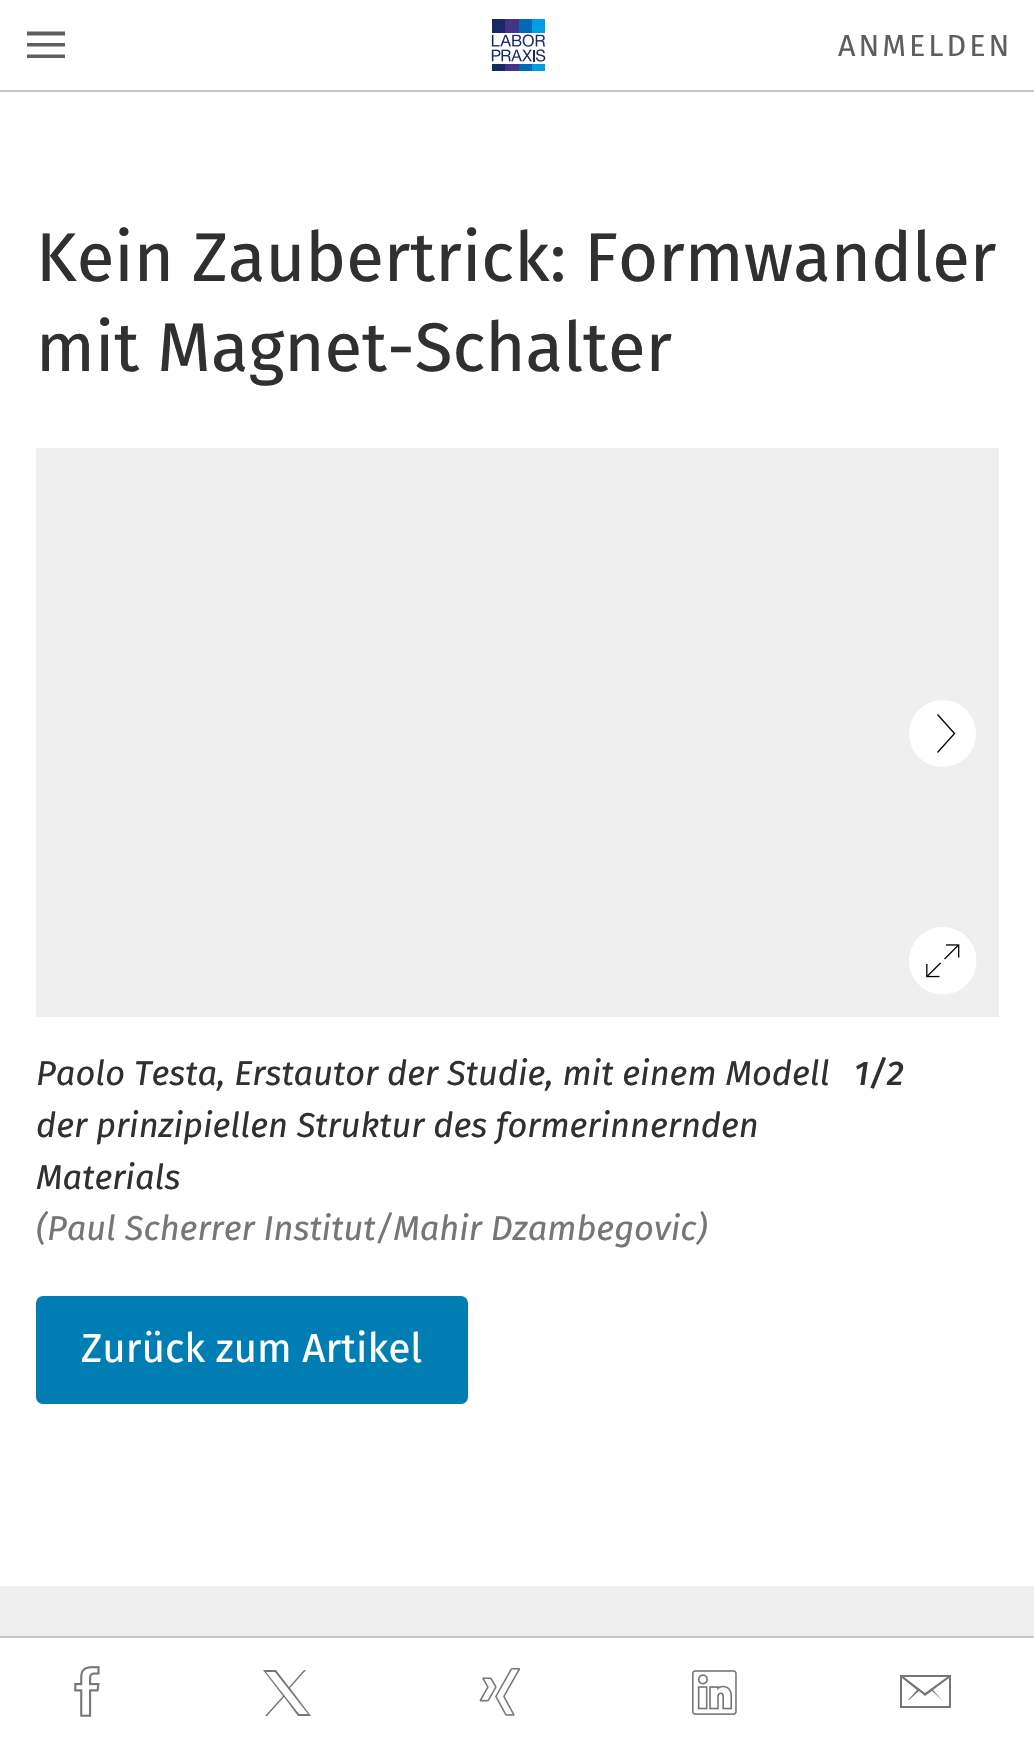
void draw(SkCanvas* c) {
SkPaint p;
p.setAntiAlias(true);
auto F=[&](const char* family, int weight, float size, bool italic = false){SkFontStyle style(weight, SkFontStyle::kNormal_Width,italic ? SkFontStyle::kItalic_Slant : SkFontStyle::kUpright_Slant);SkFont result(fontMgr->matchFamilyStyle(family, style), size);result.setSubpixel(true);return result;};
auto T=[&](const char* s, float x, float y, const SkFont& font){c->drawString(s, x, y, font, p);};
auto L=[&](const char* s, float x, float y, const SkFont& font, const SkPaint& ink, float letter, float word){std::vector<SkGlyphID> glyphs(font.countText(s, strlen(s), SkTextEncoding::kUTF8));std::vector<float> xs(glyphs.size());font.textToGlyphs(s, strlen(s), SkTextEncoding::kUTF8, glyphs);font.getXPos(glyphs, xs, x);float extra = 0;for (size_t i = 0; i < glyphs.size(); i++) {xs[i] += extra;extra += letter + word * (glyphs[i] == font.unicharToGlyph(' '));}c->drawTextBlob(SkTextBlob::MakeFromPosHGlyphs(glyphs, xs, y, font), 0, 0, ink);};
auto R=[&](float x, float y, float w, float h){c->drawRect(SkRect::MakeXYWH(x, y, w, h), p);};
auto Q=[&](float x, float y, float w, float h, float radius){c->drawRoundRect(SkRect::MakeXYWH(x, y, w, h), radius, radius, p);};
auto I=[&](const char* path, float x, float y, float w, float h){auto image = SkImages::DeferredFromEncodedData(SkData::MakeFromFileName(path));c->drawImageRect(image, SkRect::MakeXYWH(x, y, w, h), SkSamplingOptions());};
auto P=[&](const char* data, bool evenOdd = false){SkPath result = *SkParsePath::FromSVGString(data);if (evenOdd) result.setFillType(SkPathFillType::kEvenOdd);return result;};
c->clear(0xffffffff);
p.setColor(0xffc6c6c6);
R(0,90,1034,2);
p.setColor(0xff5e5e5e);
c->drawPath(P("M27 46.5v-3.5h38v3.5zm0-11v-4h38v4zm0 22.5v-3.5h38v3.5z"),p);
I("1.png",491,19,55,52);
auto f1 = F("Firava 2",400,30.5);
L("ANMELDEN",838,56,f1,p,3,0);
auto f2 = F("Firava",400,68.8);
p.setColor(0xff303030);
T("Kein Zaubertrick: Formwandler",36,281,f2);
T("mit Magnet-Schalter",36,371,f2);
p.setColor(0xffefefef);
R(36,448,963,569);
p.setColor(0xffffffff);
c->drawPath(P("M943 700c-19 0-34 15-34 34c0 18 15 33 34 33c18 0 33-15 33-33c0-19-15-34-33-34"),p);
p.setStroke(true);
p.setStrokeWidth(1.3);
p.setColor(0xff000000);
c->drawPath(P("M937.5 752.5l17-19l-17-19"),p);
I("2.png",909,927,68,68);
auto f3 = F("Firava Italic",400,34.4,true);
p.setStroke(false);
p.setColor(0xff303030);
T("Paolo Testa, Erstautor der Studie, mit einem Modell",36,1085,f3);
T("der prinzipiellen Struktur des formerinnernden",36,1137,f3);
T("Materials",36,1189,f3);
p.setColor(0xff767676);
T("(Paul Scherrer Institut/Mahir Dzambegovic)",36,1240,f3);
auto f4 = F("Firava Italic",500,34.4,true);
p.setColor(0xff303030);
T("1/2",854,1085,f4);
p.setColor(0xff007eb4);
Q(36,1296,432,108,7);
auto f5 = F("Firava",400,40.5);
p.setColor(0xffffffff);
T("Zurück zum Artikel",81,1362,f5);
p.setColor(0xffc6c6c6);
R(0,1636,1034,2);
I("3.png",74,1666,26,51);
p.setColor(0xff767676);
c->drawPath(P("M265 1716h2l17-19l14 19h13l-21-28l16-18h-2l-15 17l-13-17h-13l20 26zm1-44h9l33 42h-9z"),p);
I("4.png",479,1668,42,48);
I("5.png",692,1670,45,45);
c->drawPath(P("M900 1675h51v33h-51zm25 18l22-16h-43zm-23 13h47v-28l-16 12l9 10l-10-9l-7 5l-6-5l-10 9h-1l9-10l-15-12z"),p);
p.setColor(0xffefefef);
R(0,1586,1034,50);
}
